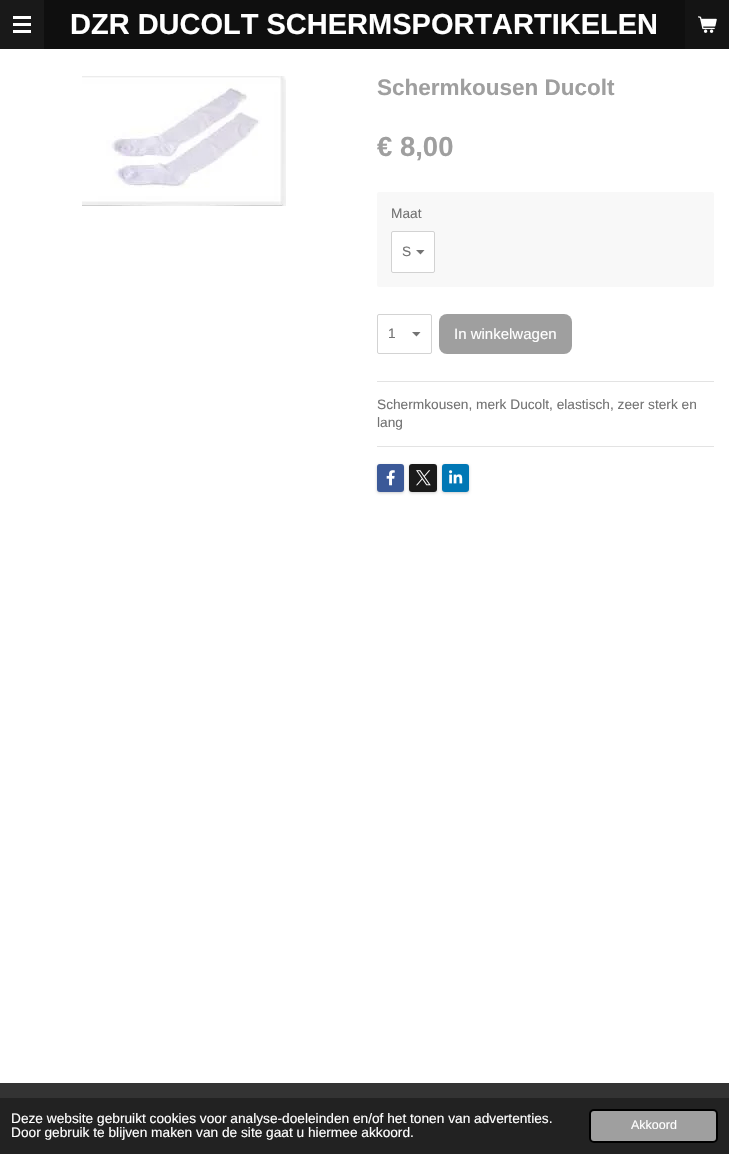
void draw(SkCanvas* c) {
SkPaint p;
p.setAntiAlias(true);
auto F=[&](const char* family, int weight, float size, bool italic = false){SkFontStyle style(weight, SkFontStyle::kNormal_Width,italic ? SkFontStyle::kItalic_Slant : SkFontStyle::kUpright_Slant);SkFont result(fontMgr->matchFamilyStyle(family, style), size);result.setSubpixel(true);return result;};
auto T=[&](const char* s, float x, float y, const SkFont& font){c->drawString(s, x, y, font, p);};
auto R=[&](float x, float y, float w, float h){c->drawRect(SkRect::MakeXYWH(x, y, w, h), p);};
auto Q=[&](float x, float y, float w, float h, float radius){c->drawRoundRect(SkRect::MakeXYWH(x, y, w, h), radius, radius, p);};
auto I=[&](const char* path, float x, float y, float w, float h){auto image = SkImages::DeferredFromEncodedData(SkData::MakeFromFileName(path));c->drawImageRect(image, SkRect::MakeXYWH(x, y, w, h), SkSamplingOptions());};
auto P=[&](const char* data, bool evenOdd = false){SkPath result = *SkParsePath::FromSVGString(data);if (evenOdd) result.setFillType(SkPathFillType::kEvenOdd);return result;};
c->clear(0xff0f0f0f);
p.setColor(0xff191919);
R(0,0,44,49);
p.setColor(0xffffffff);
R(13,23,18,3);
R(13,16,18,3);
R(13,30,18,3);
auto f1 = F("Liberation Sans",700,29);
T("DZR DUCOLT SCHERMSPORTARTIKELEN",70,34,f1);
p.setColor(0xff141414);
R(685,0,44,49);
I("1.png",698,16,19,17);
p.setColor(0xffffffff);
R(0,49,729,1034);
I("2.png",82,76,204,130);
auto f2 = F("Liberation Sans",700,22.5);
p.setColor(0xff9f9f9f);
T("Schermkousen Ducolt",377,95,f2);
auto f3 = F("Liberation Sans",700,27.5);
T("€ 8,00",377,156,f3);
p.setColor(0xfff8f8f8);
Q(377,192,337,95,2.5);
auto f4 = F("Liberation Sans",400,13.7);
p.setColor(0xff737373);
T("Maat",391,218,f4);
p.setColor(0xffffffff);
Q(391,231,44,42,2);
p.setColor(0xff737373);
c->drawPath(P("M420.5 254.5l-4.5-4.5h8.5z"),p);
p.setStroke(true);
p.setStrokeWidth(1);
p.setColor(0xffd2d2d2);
c->drawRoundRect(SkRect::MakeXYWH(391.5,231.5,43,41),1.5,1.5,p);
p.setStroke(false);
p.setColor(0xff737373);
T("S",402,256,f4);
c->drawPath(P("M416.5 336.5l-4.5-4.5h8.5z"),p);
p.setStroke(true);
p.setColor(0xffd3d3d3);
c->drawRoundRect(SkRect::MakeXYWH(377.5,314.5,54,39),1.5,1.5,p);
p.setStroke(false);
p.setColor(0xff737373);
T("1",388,338,f4);
p.setColor(0xff9f9f9f);
Q(439,314,133,40,8);
auto f5 = F("Liberation Sans",400,15);
p.setColor(0xffffffff);
T("In winkelwagen",454,339,f5);
p.setColor(0xffe3e3e3);
R(377,381,337,1);
p.setColor(0xff737373);
T("Schermkousen, merk Ducolt, elastisch, zeer sterk en",377,409,f4);
T("lang",377,427,f4);
p.setColor(0xffe3e3e3);
R(377,446,337,1);
p.setColor(0x33000000);
p.setMaskFilter(SkMaskFilter::MakeBlur(kNormal_SkBlurStyle, 1.5));
c->drawRoundRect(SkRect::MakeXYWH(377,465,27,28),3,3,p);
p.setMaskFilter(nullptr);
p.setColor(0xff3b5998);
Q(377,464,27,28,3);
I("3.png",386,470,9,16);
p.setColor(0x33000000);
p.setMaskFilter(SkMaskFilter::MakeBlur(kNormal_SkBlurStyle, 1.5));
c->drawRoundRect(SkRect::MakeXYWH(409,465,28,28),3,3,p);
p.setMaskFilter(nullptr);
p.setColor(0xff1a1a1a);
Q(409,464,28,28,3);
I("4.png",416,470,15,16);
p.setColor(0x33000000);
p.setMaskFilter(SkMaskFilter::MakeBlur(kNormal_SkBlurStyle, 1.5));
c->drawRoundRect(SkRect::MakeXYWH(442,465,27,28),3,3,p);
p.setMaskFilter(nullptr);
p.setColor(0xff0077b5);
Q(442,464,27,28,3);
I("5.png",449,470,14,14);
p.setColor(0xff333333);
R(0,1083,729,15);
p.setColor(0xff222222);
R(0,1098,729,56);
p.setColor(0xffffffff);
T("Deze website gebruikt cookies voor analyse-doeleinden en/of het tonen van advertenties.",11,1123,f4);
T("Door gebruik te blijven maken van de site gaat u hiermee akkoord.",11,1137,f4);
p.setColor(0xff9f9f9f);
c->drawRoundRect(SkRect::MakeXYWH(590,1110,127,32),4,4,p);
p.setStroke(true);
p.setStrokeWidth(2);
p.setColor(0xff000000);
c->drawRoundRect(SkRect::MakeXYWH(590,1110,127,32),4,4,p);
auto f6 = F("Liberation Sans",400,12.5);
p.setStroke(false);
p.setColor(0xffffffff);
T("Akkoord",631,1129,f6);
}
